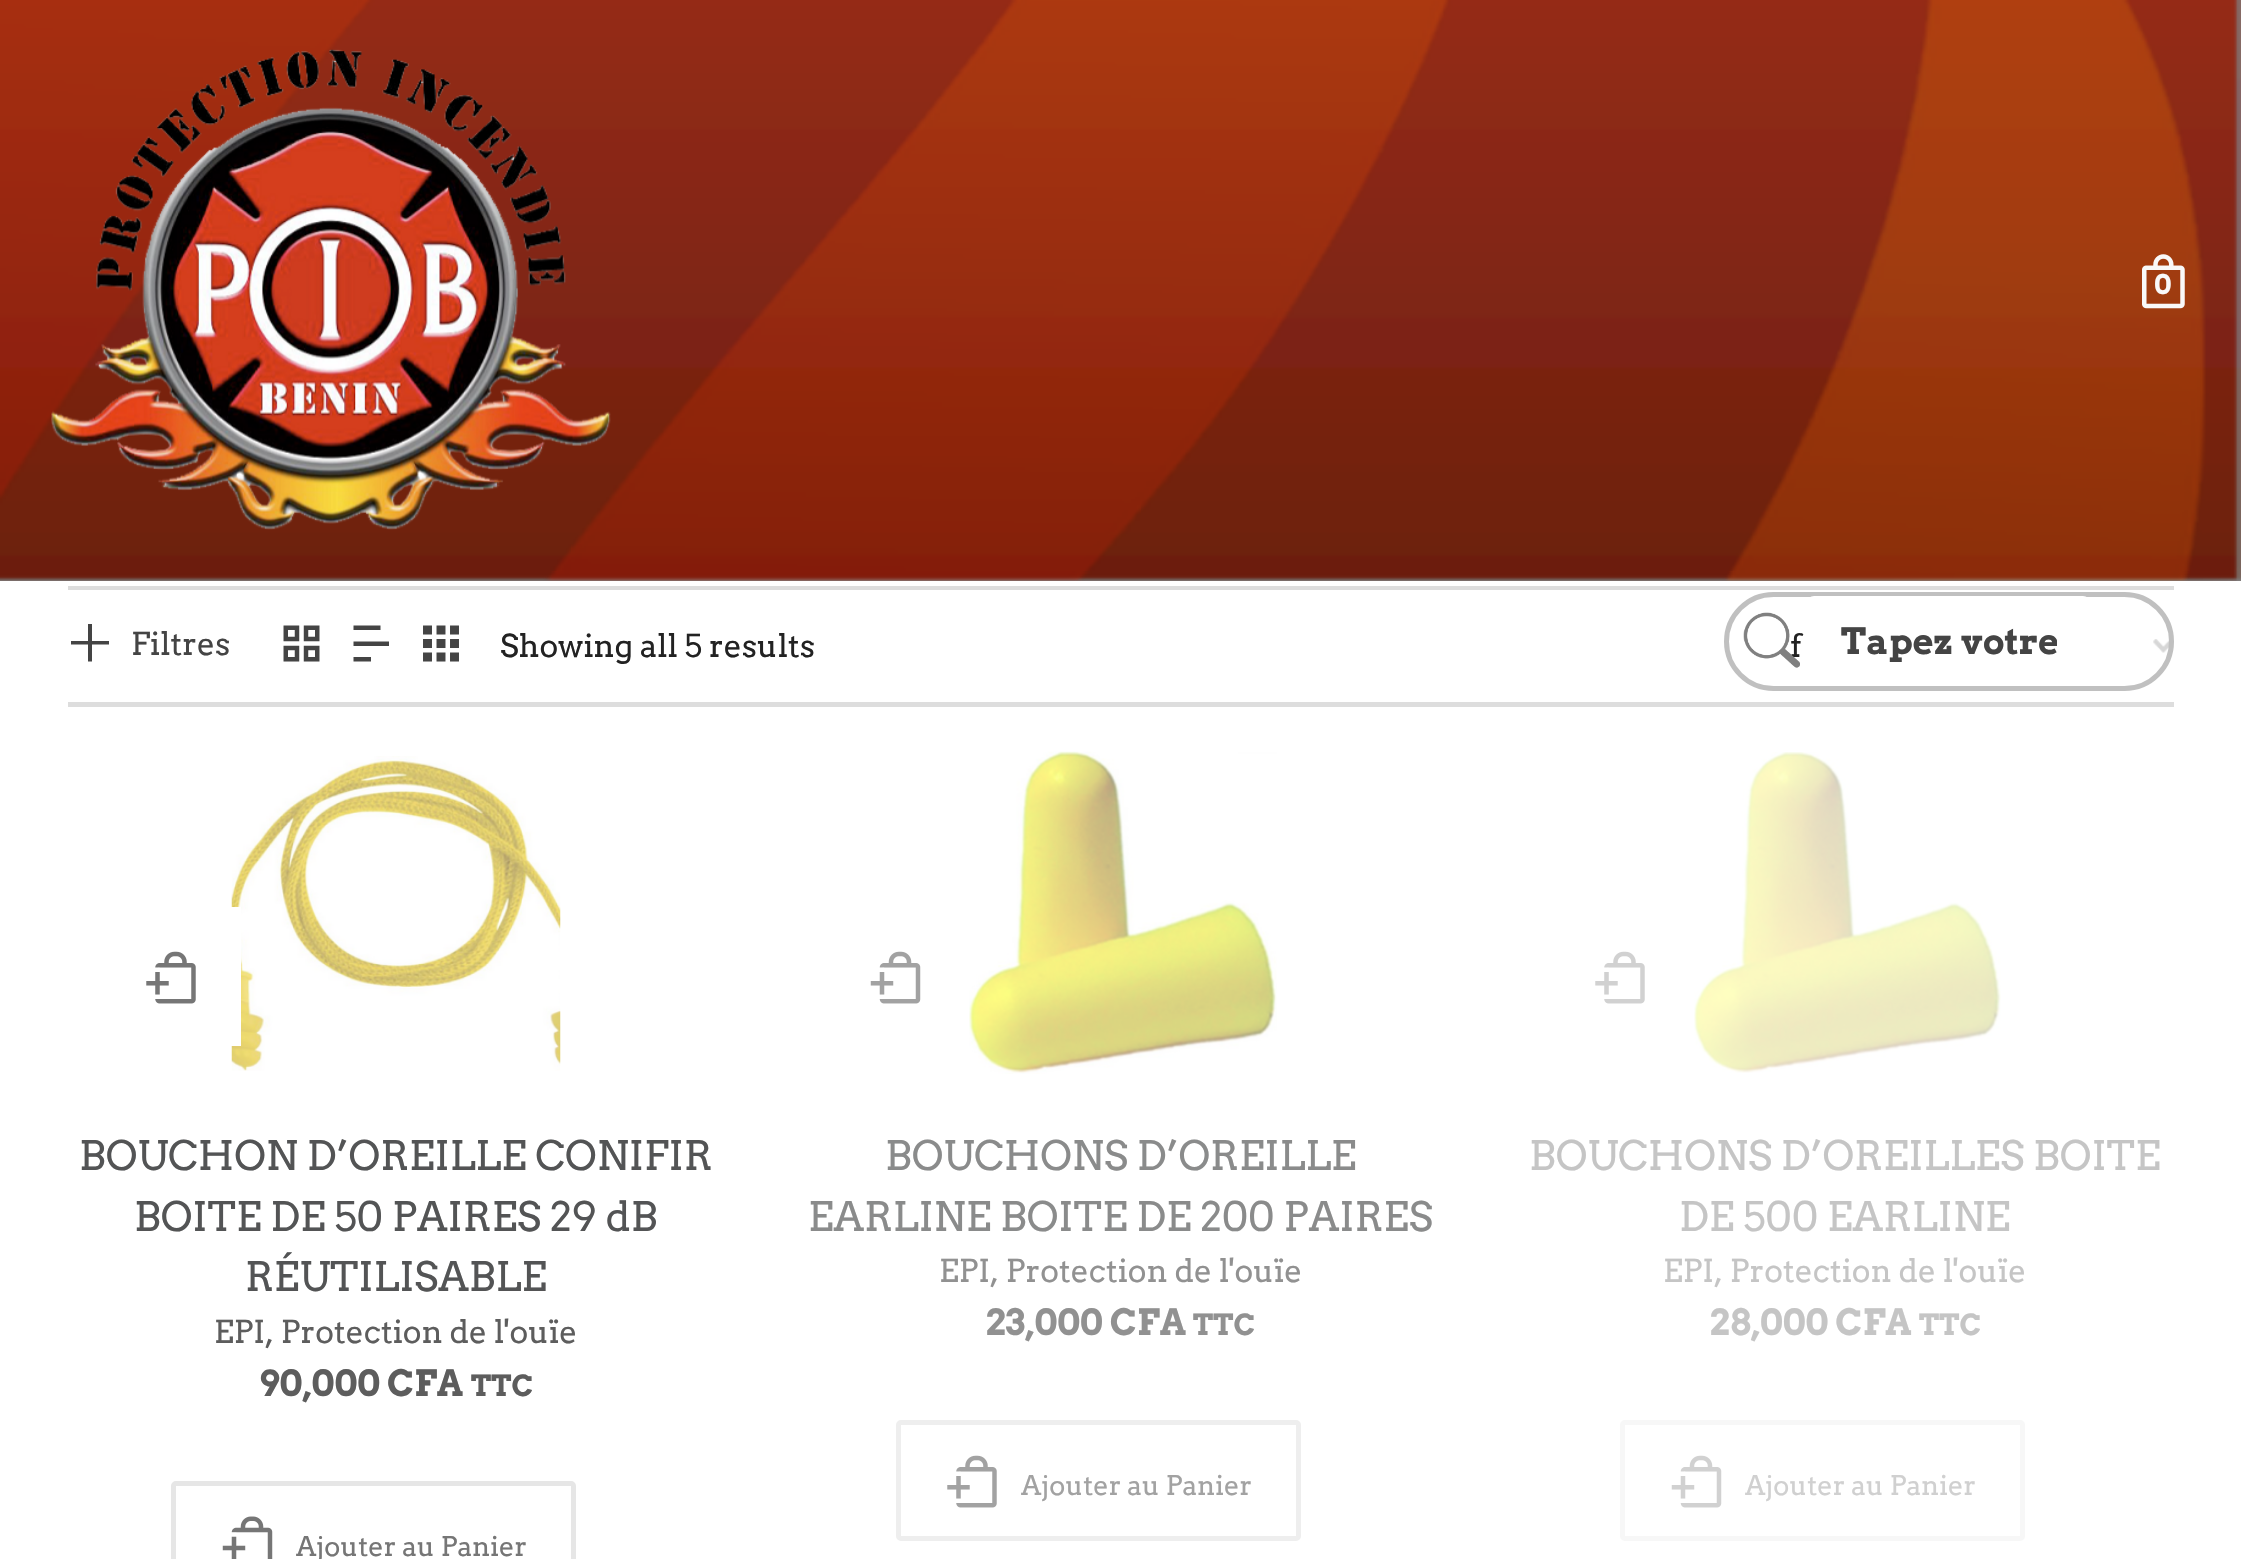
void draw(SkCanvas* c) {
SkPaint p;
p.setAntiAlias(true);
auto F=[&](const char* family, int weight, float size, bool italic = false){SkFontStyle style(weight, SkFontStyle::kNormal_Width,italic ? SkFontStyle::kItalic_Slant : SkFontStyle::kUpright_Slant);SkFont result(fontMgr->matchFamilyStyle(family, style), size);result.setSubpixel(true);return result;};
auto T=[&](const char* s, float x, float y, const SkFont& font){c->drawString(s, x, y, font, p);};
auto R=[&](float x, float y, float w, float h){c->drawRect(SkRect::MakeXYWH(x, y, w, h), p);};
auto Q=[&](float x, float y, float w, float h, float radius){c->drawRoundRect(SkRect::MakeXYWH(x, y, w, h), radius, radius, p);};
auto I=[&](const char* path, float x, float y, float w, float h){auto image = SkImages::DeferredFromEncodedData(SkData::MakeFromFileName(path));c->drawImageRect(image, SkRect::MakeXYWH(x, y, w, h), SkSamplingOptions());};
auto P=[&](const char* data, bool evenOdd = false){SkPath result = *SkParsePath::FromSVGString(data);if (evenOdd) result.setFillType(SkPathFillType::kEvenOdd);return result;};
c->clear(0xffffffff);
p.setColor(0xff848484);
R(0,0,2241,581);
I("1.png",0,0,2241,581);
I("2.png",51,49,560,481);
I("3.png",2142,254,43,55);
auto f1 = F("Arvo",700,27);
p.setColor(0xfff9f9f9);
T("0",2154,294,f1);
I("7.png",2153,639,21,14);
p.setStroke(true);
p.setStrokeWidth(5);
p.setColor(0xffc0c0c0);
c->drawRoundRect(SkRect::MakeXYWH(1726.5,594.5,445,94),47,47,p);
auto f2 = F("Arvo",400,31.5);
p.setStroke(false);
p.setColor(0xff222222);
T("f",1790,657,f2);
I("4.png",1743,612,57,56);
p.setColor(0xffffffff);
Q(1807,596,283,90,7);
c->save();
c->clipRect(SkRect::MakeXYWH(1841,619,216,43));
auto f3 = F("Arvo",700,36);
p.setColor(0xff444444);
T("Tapez votre",1841,654,f3);
c->restore();
p.setColor(0xffdddddd);
R(68,586,2106,4);
R(68,702,2106,5);
p.setColor(0xff444444);
c->drawPath(P("M92 624h-4v17h-17v3.5h17v17h4v-17h17v-3.5h-17z"),p);
T("Filtres",131,655,f2);
I("5.png",283,625,37,37);
c->drawPath(P("M353.5 641.5h35.5v4.5h-35.5zm0-16h27v4.5h-27zm0 31.5h17.5v4.5h-17.5z"),p);
I("6.png",423,625,36,37);
p.setColor(0xff222222);
T("Showing all 5 results",500,657,f2);
I("9.png",231,756,330,315);
p.setColor(0xffffffff);
R(231,907,10,139);
I("8.png",146,951,50,53);
auto f4 = F("Arvo",400,40.5);
p.setColor(0xff535455);
T("BOUCHON D’OREILLE CONIFIR",79,1170,f4);
T("BOITE DE 50 PAIRES 29 dB",134,1231,f4);
T("RÉUTILISABLE",245,1291,f4);
p.setColor(0xff5d5d5d);
T("EPI, Protection de l'ouïe",214,1343,f2);
T("90,000 CFA",259,1396,f3);
auto f5 = F("Arvo",700,29);
T("TTC",471,1396,f5);
p.setStroke(true);
p.setColor(0xffe6e6e6);
c->drawRoundRect(SkRect::MakeXYWH(173.5,1483.5,400,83),2.5,2.5,p);
I("10.png",222,1516,51,43);
auto f6 = F("Arvo",400,27);
p.setStroke(false);
p.setColor(0xff767676);
T("Ajouter au Panier",296,1556,f6);
I("11.png",870,951,51,53);
I("12.png",969,751,308,323);
p.setColor(0xff8a8b8b);
T("BOUCHONS D’OREILLE",885,1170,f4);
T("EARLINE BOITE DE 200 PAIRES",808,1231,f4);
p.setColor(0xff919191);
T("EPI, Protection de l'ouïe",939,1282,f2);
T("23,000 CFA",985,1335,f3);
T("TTC",1193,1335,f5);
p.setStroke(true);
p.setColor(0xffeeeeee);
c->drawRoundRect(SkRect::MakeXYWH(898.5,1422.5,400,116),2.5,2.5,p);
I("13.png",947,1455,50,53);
p.setStroke(false);
p.setColor(0xffa2a2a2);
T("Ajouter au Panier",1021,1495,f6);
I("14.png",1595,951,50,53);
I("15.png",1694,752,307,321);
p.setColor(0xffc5c5c5);
T("BOUCHONS D’OREILLES BOITE",1529,1170,f4);
T("DE 500 EARLINE",1679,1231,f4);
T("EPI, Protection de l'ouïe",1663,1282,f2);
T("28,000 CFA",1709,1335,f3);
T("TTC",1919,1335,f5);
p.setStroke(true);
p.setColor(0xfff7f7f7);
c->drawRoundRect(SkRect::MakeXYWH(1622.5,1422.5,400,116),2.5,2.5,p);
I("16.png",1671,1455,51,53);
p.setStroke(false);
p.setColor(0xffd0d0d0);
T("Ajouter au Panier",1745,1495,f6);
}
